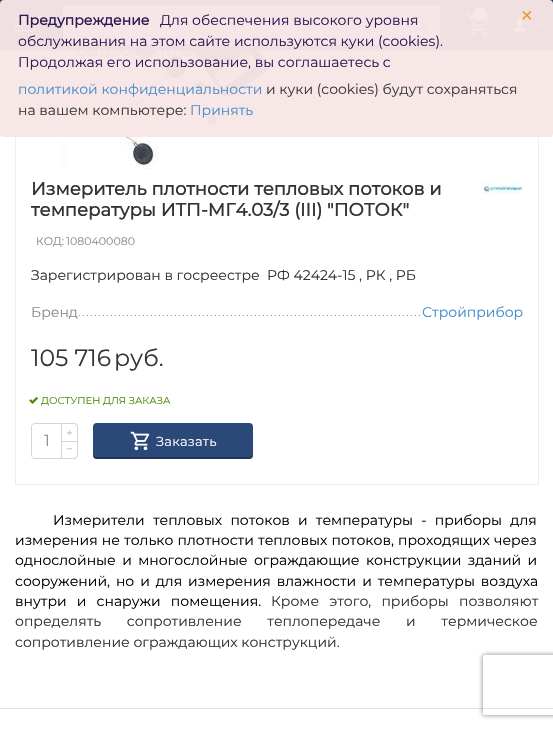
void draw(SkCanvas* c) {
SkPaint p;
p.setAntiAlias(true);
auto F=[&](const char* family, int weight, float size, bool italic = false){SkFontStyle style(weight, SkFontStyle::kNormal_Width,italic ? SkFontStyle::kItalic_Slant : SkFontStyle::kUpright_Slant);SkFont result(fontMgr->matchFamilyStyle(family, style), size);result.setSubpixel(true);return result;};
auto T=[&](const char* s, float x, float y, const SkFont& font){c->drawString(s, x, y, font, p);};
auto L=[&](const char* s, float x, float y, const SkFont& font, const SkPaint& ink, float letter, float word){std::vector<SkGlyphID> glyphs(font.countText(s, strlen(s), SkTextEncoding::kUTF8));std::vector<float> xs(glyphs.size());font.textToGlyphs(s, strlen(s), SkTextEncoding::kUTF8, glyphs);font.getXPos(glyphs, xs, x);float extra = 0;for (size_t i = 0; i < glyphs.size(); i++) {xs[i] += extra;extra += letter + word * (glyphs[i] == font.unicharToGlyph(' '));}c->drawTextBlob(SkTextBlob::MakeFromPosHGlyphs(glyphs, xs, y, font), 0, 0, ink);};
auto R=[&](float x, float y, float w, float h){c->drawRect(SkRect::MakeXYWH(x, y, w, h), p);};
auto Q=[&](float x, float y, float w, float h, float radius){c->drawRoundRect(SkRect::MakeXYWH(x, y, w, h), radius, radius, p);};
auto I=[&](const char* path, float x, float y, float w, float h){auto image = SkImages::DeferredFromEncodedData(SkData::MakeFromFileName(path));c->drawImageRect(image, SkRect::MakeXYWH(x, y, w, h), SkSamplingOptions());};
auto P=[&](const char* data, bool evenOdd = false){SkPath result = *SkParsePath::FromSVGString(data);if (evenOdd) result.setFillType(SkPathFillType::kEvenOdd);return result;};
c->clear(0xffffffff);
p.setStroke(true);
p.setStrokeWidth(1);
p.setColor(0xffeeeeee);
c->drawRect(SkRect::MakeXYWH(15.5,-.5,523,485),p);
I("5.png",55,50,216,119);
p.setStroke(false);
p.setColor(0x1a000000);
p.setMaskFilter(SkMaskFilter::MakeBlur(kNormal_SkBlurStyle, 1.5));
c->drawRect(SkRect::MakeXYWH(0,3,553,50),p);
p.setMaskFilter(nullptr);
p.setMaskFilter(SkMaskFilter::MakeBlur(kNormal_SkBlurStyle, .5));
c->drawRect(SkRect::MakeXYWH(0,1,553,50),p);
p.setMaskFilter(nullptr);
p.setColor(0xff1d365d);
R(0,0,553,50);
I("1.png",14,18,22,14);
p.setColor(0xffdde1e7);
Q(63,5,377,40,4);
I("2.png",411,16,18,18);
I("3.png",466,13,24,24);
p.setColor(0xffeeeeee);
c->drawCircle(480,14,7,p);
I("4.png",513,18,14,14);
p.setColor(0xff888888);
c->drawPath(P("M538 28.5l-4-4.5h8.5z"),p);
p.setColor(0xf5f8e6e6);
Q(0,0,553,137,4);
auto f1 = F("Montserrat",700,14);
p.setColor(0xff281a53);
T("Предупреждение",18,25,f1);
auto f2 = F("Montserrat",100,14);
T("Для обеспечения высокого уровня",160,25,f2);
auto f3 = F("Liberation Sans",400,20);
p.setColor(0xffea9815);
T("×",521,22,f3);
p.setColor(0xff281a53);
T("обслуживания на этом сайте используются куки (cookies).",18,46,f2);
T("Продолжая его использование, вы соглашаетесь с",18,67,f2);
p.setColor(0xff498fcb);
T("политикой конфиденциальности",18,94,f2);
p.setColor(0xff3b3b3b);
T("и куки (cookies) будут сохраняться",266,94,f2);
T("на вашем компьютере:",18,115,f2);
p.setColor(0xff498fcb);
T("Принять",190,115,f2);
auto f4 = F("Montserrat",700,18);
p.setColor(0xff333333);
T("Измеритель плотности тепловых потоков и",31,195,f4);
T("температуры ИТП-МГ4.03/3 (III) \"ПОТОК\"",31,216,f4);
I("6.png",483,180,40,14);
auto f5 = F("Montserrat",100,11);
p.setColor(0xff8c8c8c);
T("КОД:",36,245,f5);
T("1080400080",66,245,f5);
p.setColor(0xff333333);
T("Зарегистрирован в госреестре",31,280,f2);
T("РФ 42424-15 , РК , РБ",267,280,f2);
p.setColor(0xff8c8c8c);
T("Бренд",31,317,f2);
I("7.png",78,315,344,1);
p.setColor(0xff428bca);
T("Стройприбор",422,317,f2);
auto f6 = F("Montserrat",100,23.5);
p.setColor(0xff333333);
T("105 716",31,366,f6);
T("руб.",114,366,f6);
I("8.png",29,396,9,8);
auto f7 = F("Montserrat",100,10);
p.setColor(0xff4c8a00);
T("ДОСТУПЕН ДЛЯ ЗАКАЗА",41,404,f7);
p.setColor(0xffd5d5d5);
c->drawPath(P("M62 423h12c2 0 4 2 4 4v14h-16zm0 1h12c1.5 0 3 1.5 3 3v14h-15z",true),p);
auto f8 = F("Montserrat",100,12);
p.setColor(0xffbbbbbb);
T("+",66,437,f8);
p.setStroke(true);
p.setColor(0xffd5d5d5);
c->drawPath(P("M35 423.5h26.5v35h-26.5c-2 0-3.5-1.5-3.5-3.5v-28c0-2 1.5-3.5 3.5-3.5z"),p);
auto f9 = F("Montserrat",100,16);
p.setStroke(false);
p.setColor(0xff8c8c8c);
T("1",44,446,f9);
p.setColor(0xffd5d5d5);
c->drawPath(P("M62 441h16v14c0 2-2 4-4 4h-12zm0 1h15v13c0 1.5-1.5 3-3 3h-12z",true),p);
p.setColor(0xffbbbbbb);
T("−",66,453,f8);
p.setColor(0xff2a4878);
Q(93,423,160,36,4);
p.setColor(0x4d000000);
c->drawPath(P("M93 453v2c0 2 2 4 4 4h152c2 0 4-2 4-4v-2c0 2-2 4-4 4h-152c-2 0-4-2-4-4z"),p);
I("9.png",130,431,20,20);
auto f10 = F("Montserrat",100,13);
p.setColor(0xffffffff);
L("Заказать",156,446,f10,p,.25,0);
p.setColor(0xff000000);
L("Измерители тепловых потоков",53,525,f2,p,0,4.5);
L("и температуры - приборы для",298,525,f2,p,0,4.5);
L("измерения не только плотности тепловых потоков, проходящих через",15,545,f2,p,0,.5);
L("однослойные и многослойные ограждающие конструкции зданий и",15,565,f2,p,0,2.75);
L("сооружений, но и для измерения влажности и температуры воздуха",15,586,f2,p,0,2.25);
L("внутри и снаружи помещения.",15,606,f2,p,0,6.5);
p.setColor(0xff333333);
L("Кроме этого, приборы позволяют",271,606,f2,p,0,6.5);
L("определять сопротивление теплопередаче и термическое",15,626,f2,p,0,22);
T("сопротивление ограждающих конструкций.",15,647,f2);
p.setColor(0xffe1e1e1);
R(0,708,553,1);
c->save();
c->clipPath(P("M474 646h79v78h-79zm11 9h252c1 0 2 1 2 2v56c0 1-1 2-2 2h-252c-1 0-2-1-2-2v-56c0-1 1-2 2-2z",true),true);
p.setColor(0xff808080);
p.setMaskFilter(SkMaskFilter::MakeBlur(kNormal_SkBlurStyle, 2.5));
c->drawRoundRect(SkRect::MakeXYWH(483,655,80,60),2,2,p);
p.setMaskFilter(nullptr);
c->restore();
}
